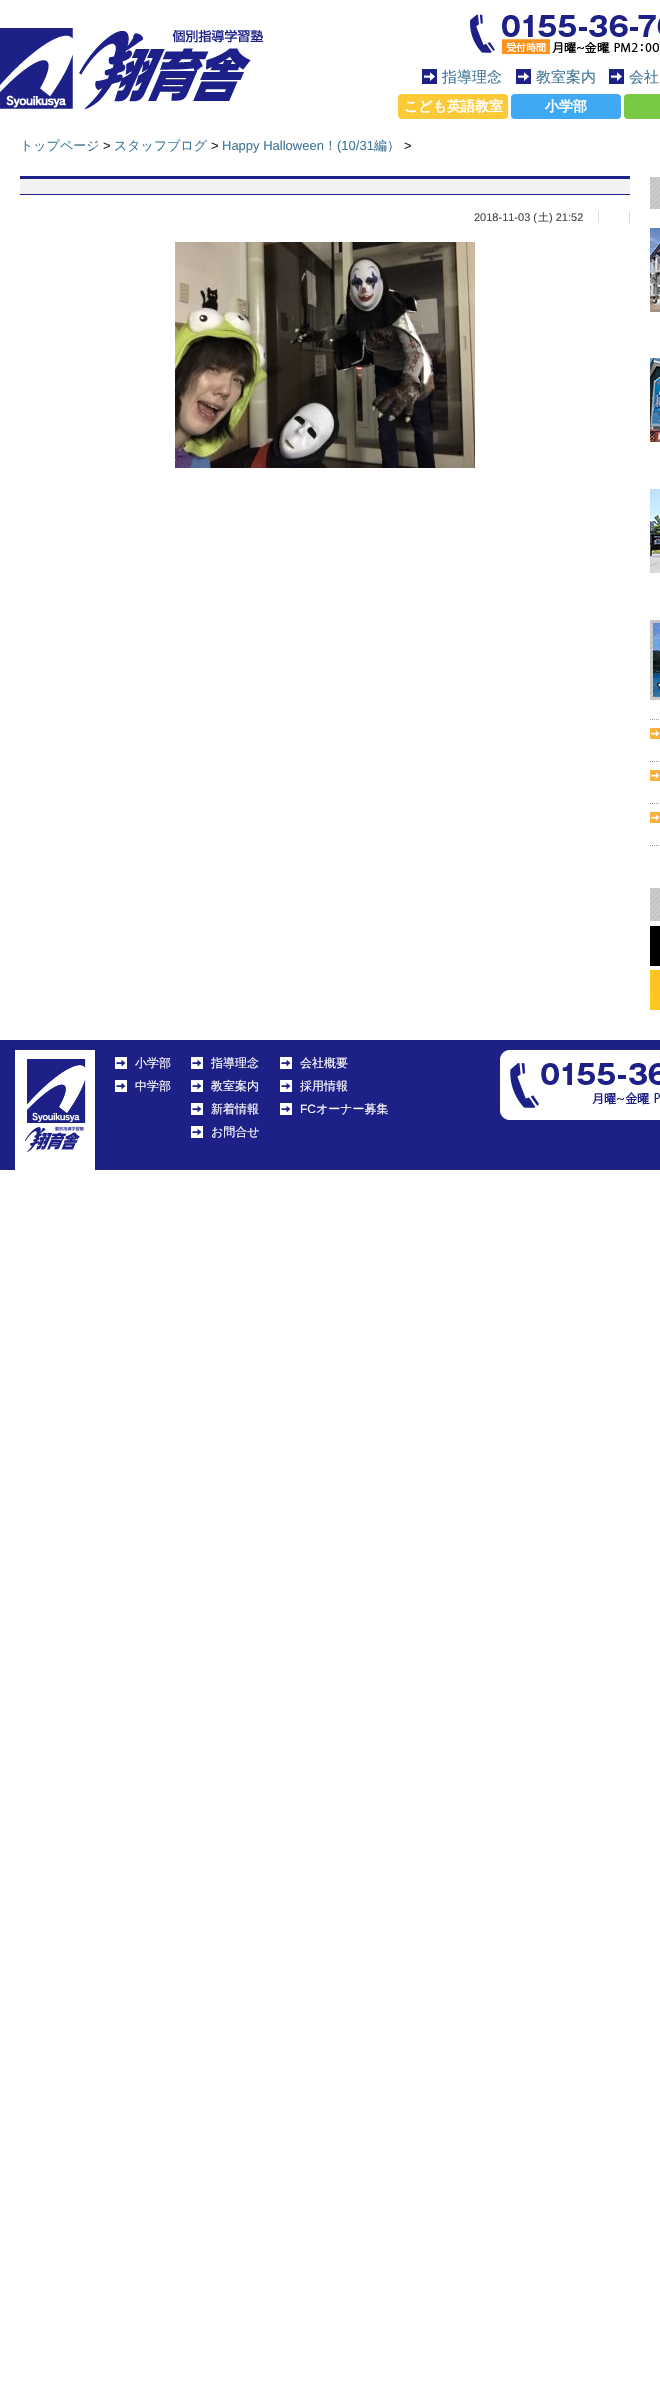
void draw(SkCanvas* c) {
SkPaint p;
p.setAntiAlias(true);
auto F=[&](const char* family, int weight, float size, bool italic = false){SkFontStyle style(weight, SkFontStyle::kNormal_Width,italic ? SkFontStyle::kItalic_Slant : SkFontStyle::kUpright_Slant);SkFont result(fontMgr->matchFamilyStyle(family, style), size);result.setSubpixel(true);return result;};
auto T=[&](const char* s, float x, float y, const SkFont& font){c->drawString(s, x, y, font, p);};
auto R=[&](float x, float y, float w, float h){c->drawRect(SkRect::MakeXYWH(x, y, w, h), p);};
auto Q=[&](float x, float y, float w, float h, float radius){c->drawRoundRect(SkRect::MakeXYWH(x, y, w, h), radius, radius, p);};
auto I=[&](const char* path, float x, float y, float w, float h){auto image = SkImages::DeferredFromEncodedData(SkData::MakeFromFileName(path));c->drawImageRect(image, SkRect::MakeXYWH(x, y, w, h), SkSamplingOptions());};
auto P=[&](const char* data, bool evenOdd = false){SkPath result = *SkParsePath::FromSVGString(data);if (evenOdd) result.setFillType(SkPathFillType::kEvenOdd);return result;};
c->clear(0xffffffff);
I("1.png",0,28,263,81);
I("2.png",470,14,190,41);
I("3.png",422,69,15,15);
auto f1 = F("WenQuanYi Zen Hei",500,15);
p.setColor(0xff417698);
T("指導理念",442,82,f1);
I("3.png",516,69,15,15);
T("教室案内",536,82,f1);
I("3.png",609,69,15,15);
T("会社",629,82,f1);
p.setColor(0xfffcca37);
Q(398,94,110,25,4);
auto f2 = F("WenQuanYi Zen Hei",700,14);
p.setColor(0xffffffff);
T("こども英語教室",404,111,f2);
p.setColor(0xff3fa9f5);
Q(511,94,110,25,4);
p.setColor(0xffffffff);
T("小学部",545,111,f2);
p.setColor(0xff7ac943);
Q(624,94,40,25,4);
auto f3 = F("WenQuanYi Zen Hei",500,13);
p.setColor(0xff417698);
T("トップページ",20,150,f3);
auto f4 = F("Liberation Sans",400,13);
p.setColor(0xff222222);
T(">",103,150,f4);
p.setColor(0xff417698);
T("スタッフブログ",114,150,f3);
p.setColor(0xff222222);
T(">",211,150,f4);
p.setColor(0xff417698);
T("Happy Halloween",222,150,f4);
T("！",324,150,f3);
T("(10/31",337,150,f4);
T("編）",374,150,f3);
p.setColor(0xff222222);
T(">",404,150,f4);
p.setColor(0xfff2f2f2);
R(20,179,610,15);
p.setColor(0xff1d2087);
R(20,176,610,3);
R(20,194,610,1);
auto f5 = F("Liberation Sans",400,11);
p.setColor(0xff444444);
T("2018-11-03 (",474,221,f5);
auto f6 = F("WenQuanYi Zen Hei",500,11);
T("土",538,221,f6);
T(") 21:52",549,221,f5);
p.setColor(0xffdddddd);
R(598,211,1,12);
R(629,211,1,12);
I("4.png",175,242,300,226);
I("5.png",650,177,10,32);
I("6.png",650,228,10,84);
I("7.png",650,358,10,84);
I("8.png",650,489,10,84);
I("9.png",650,620,10,80);
p.setStroke(true);
p.setStrokeWidth(1);
p.setColor(0xff999999);
p.setPathEffect(SkDashPathEffect::Make({{1,1}}, 0));
c->drawPath(P("M650 719.5h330"),p);
p.setPathEffect(nullptr);
I("10.png",650,728,10,11);
p.setPathEffect(SkDashPathEffect::Make({{1,1}}, 0));
c->drawPath(P("M650 761.5h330"),p);
p.setPathEffect(nullptr);
I("10.png",650,770,10,11);
p.setPathEffect(SkDashPathEffect::Make({{1,1}}, 0));
c->drawPath(P("M650 803.5h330"),p);
p.setPathEffect(nullptr);
I("10.png",650,812,10,11);
p.setPathEffect(SkDashPathEffect::Make({{1,1}}, 0));
c->drawPath(P("M650 845.5h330"),p);
p.setPathEffect(nullptr);
I("11.png",650,888,10,33);
p.setStroke(false);
p.setColor(0xff000000);
R(650,926,10,40);
I("12.png",650,970,10,40);
p.setColor(0xff1d2087);
R(0,1040,660,130);
I("13.png",15,1050,80,120);
I("14.png",115,1057,12,12);
auto f7 = F("WenQuanYi Zen Hei",500,12);
p.setColor(0xffffffff);
T("小学部",135,1067,f7);
I("14.png",115,1080,12,12);
T("中学部",135,1090,f7);
I("14.png",191,1057,12,12);
T("指導理念",211,1067,f7);
I("14.png",191,1080,12,12);
T("教室案内",211,1090,f7);
I("14.png",191,1103,12,12);
T("新着情報",211,1113,f7);
I("14.png",191,1126,12,12);
T("お問合せ",211,1136,f7);
I("14.png",280,1057,12,12);
T("会社概要",300,1067,f7);
I("14.png",280,1080,12,12);
T("採用情報",300,1090,f7);
I("14.png",280,1103,12,12);
auto f8 = F("Liberation Sans",400,12);
T("FC",300,1113,f8);
T("オーナー募集",316,1113,f7);
I("15.png",500,1050,160,70);
}
